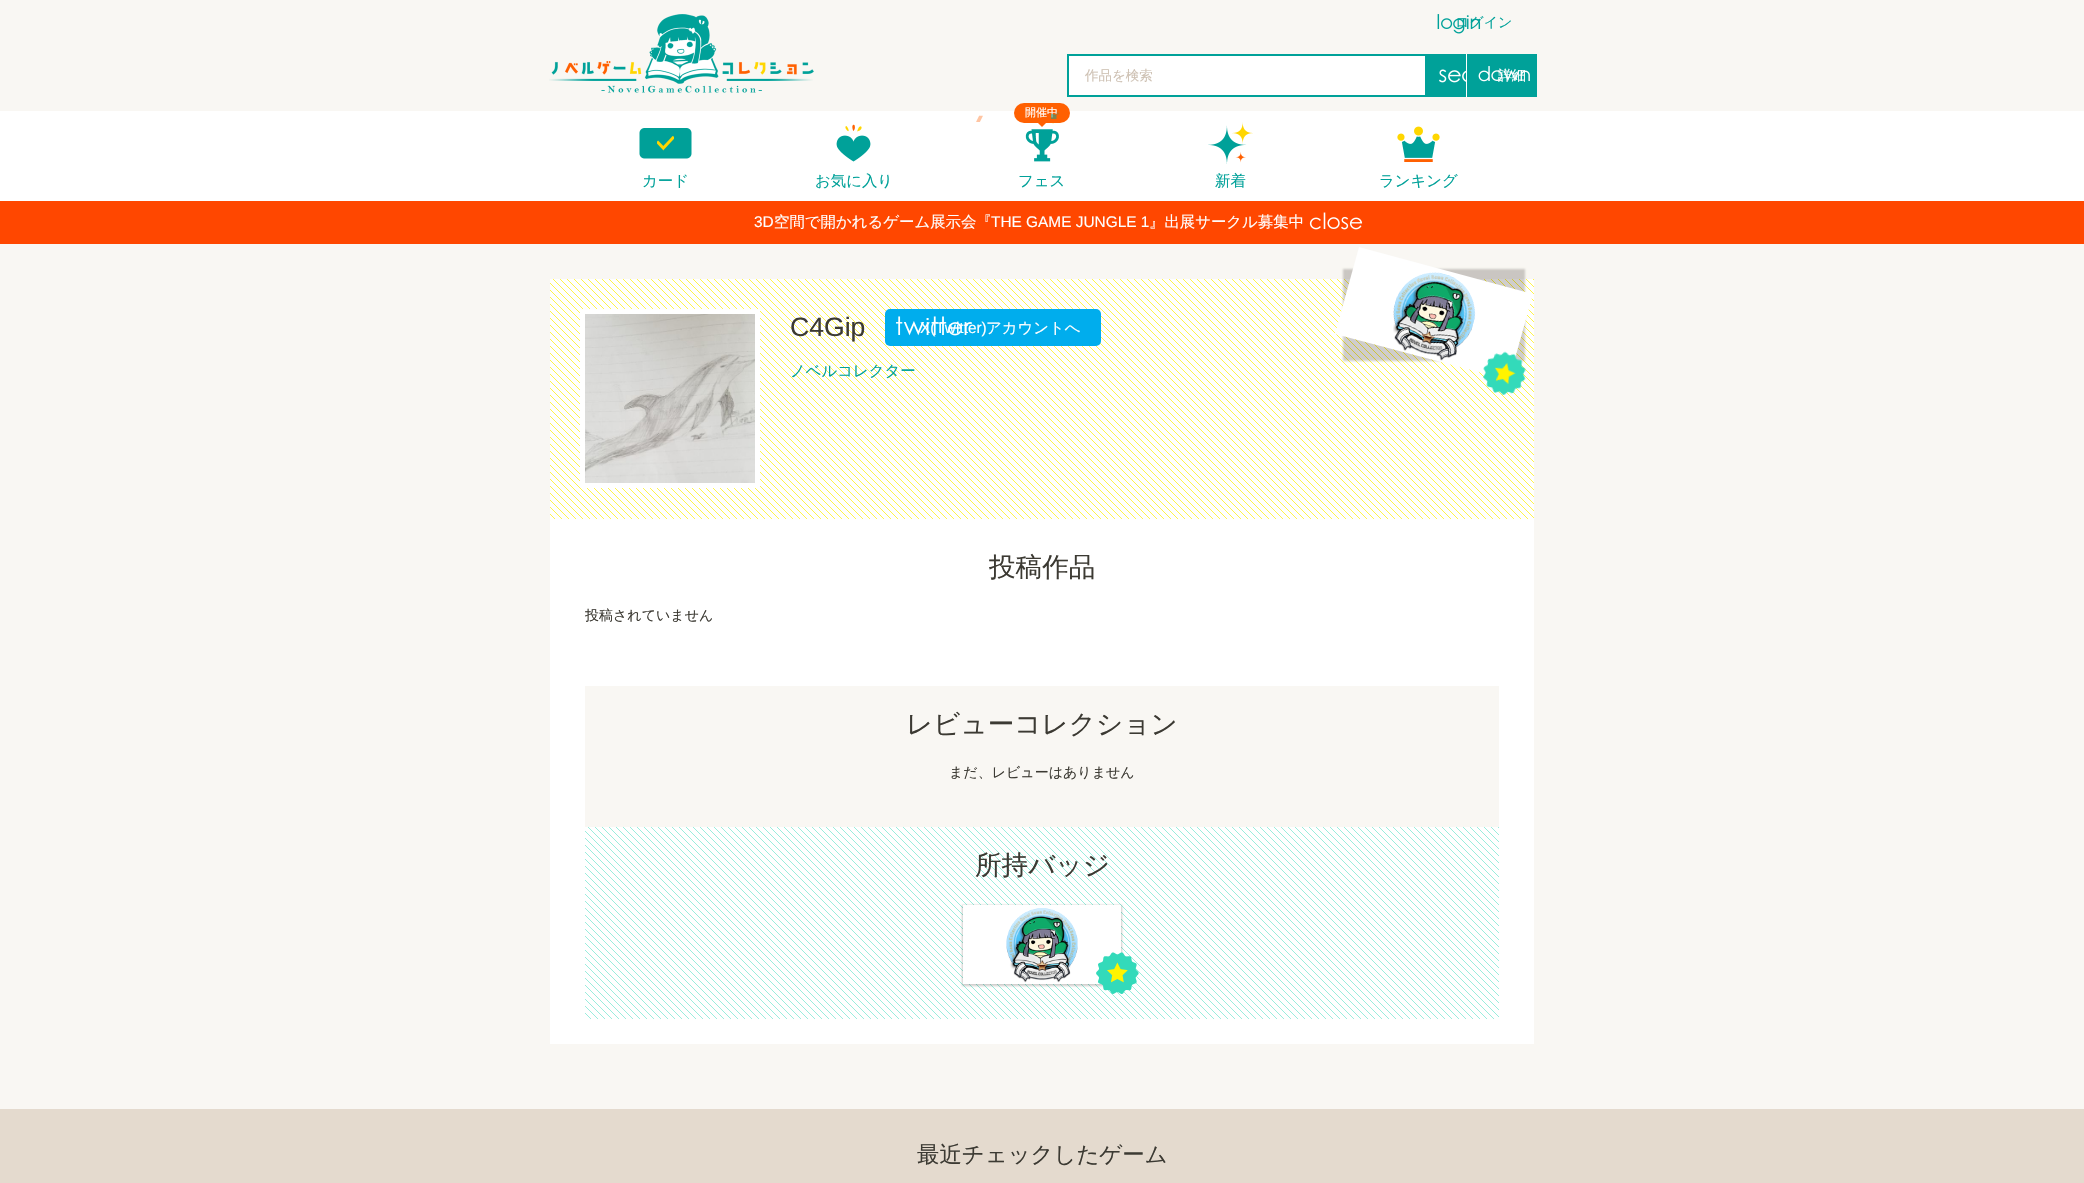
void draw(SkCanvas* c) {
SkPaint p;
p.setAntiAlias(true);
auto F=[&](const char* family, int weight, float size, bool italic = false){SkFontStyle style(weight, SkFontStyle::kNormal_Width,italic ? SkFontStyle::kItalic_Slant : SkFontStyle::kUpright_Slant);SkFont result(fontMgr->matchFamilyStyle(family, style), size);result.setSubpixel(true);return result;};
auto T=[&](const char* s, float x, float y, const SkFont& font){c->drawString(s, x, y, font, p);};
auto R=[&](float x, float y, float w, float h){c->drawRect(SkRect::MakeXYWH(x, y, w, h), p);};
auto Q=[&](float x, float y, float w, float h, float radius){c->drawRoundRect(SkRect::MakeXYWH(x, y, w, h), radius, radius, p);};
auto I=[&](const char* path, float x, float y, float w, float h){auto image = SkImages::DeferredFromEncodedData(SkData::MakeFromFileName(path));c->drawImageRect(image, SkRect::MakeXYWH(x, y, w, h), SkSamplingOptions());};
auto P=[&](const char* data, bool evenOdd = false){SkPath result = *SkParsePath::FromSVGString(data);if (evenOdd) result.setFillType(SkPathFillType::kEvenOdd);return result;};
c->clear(0xfff9f7f3);
I("1.png",549,14,265,79);
p.setColor(0xffffffff);
R(0,111,2084,90);
I("2.png",1437,14,44,20);
auto f1 = F("WenQuanYi Zen Hei",500,14);
p.setColor(0xff00a199);
T("ログイン",1455,27,f1);
I("3.png",639,128,53,31);
auto f2 = F("WenQuanYi Zen Hei",500,15.4);
T("カード",642,186,f2);
I("4.png",836,124,35,38);
T("お気に入り",815,186,f2);
I("5.png",976,115,78,9);
I("6.png",976,115,78,9);
p.setColor(0xffff6001);
Q(1014,103,56,20,10);
auto f3 = F("WenQuanYi Zen Hei",500,11);
p.setColor(0xffffffff);
T("開催中",1025,116,f3);
p.setColor(0xffff6001);
c->drawPath(P("M1037 122h10l-5 5z"),p);
I("7.png",1051,112,9,7);
I("8.png",1025,129,34,33);
p.setColor(0xff00a199);
T("フェス",1018,186,f2);
I("9.png",1208,122,45,42);
T("新着",1215,186,f2);
I("10.png",1397,126,43,36);
T("ランキング",1379,186,f2);
p.setColor(0xffffffff);
c->drawRect(SkRect::MakeXYWH(1068,55,358,41),p);
p.setStroke(true);
p.setStrokeWidth(2);
p.setColor(0xff00a199);
c->drawRect(SkRect::MakeXYWH(1068,55,358,41),p);
auto f4 = F("WenQuanYi Zen Hei",500,13.5);
p.setStroke(false);
p.setColor(0xffcec1b3);
T("作品を検索",1085,80,f4);
p.setColor(0xff00a199);
R(1427,54,39,43);
p.setColor(0xffffffff);
R(1466,54,1,43);
I("11.png",1439,69,27,14);
p.setColor(0xff00a199);
R(1467,54,70,43);
I("12.png",1478,66,52,16);
p.setColor(0xffffffff);
T("詳細",1498,80,f1);
p.setStroke(true);
p.setStrokeWidth(1);
p.setColor(0xffff4700);
c->drawRect(SkRect::MakeXYWH(.5,201.5,2083,42),p);
p.setStroke(false);
R(1,202,2082,41);
auto f5 = F("Liberation Sans",400,15.4);
p.setColor(0xffffffff);
T("3D",754,227,f5);
T("空間で開かれるゲーム展示会『",774,227,f2);
T("THE GAME JUNGLE 1",991,227,f5);
T("』出展サークル募集中",1149,227,f2);
I("13.png",1309,212,54,18);
R(550,279,984,765);
I("14.png",550,279,984,240);
p.setStroke(true);
p.setStrokeWidth(5);
c->drawRect(SkRect::MakeXYWH(582.5,311.5,175,174),p);
I("15.png",585,314,170,169);
auto f6 = F("Liberation Sans",400,26.6);
p.setStroke(false);
p.setColor(0xff3c3a33);
T("C4Gip",790,336,f6);
p.setColor(0xff00aded);
Q(885,309,216,37,5);
I("16.png",896,316,76,20);
p.setColor(0xffffffff);
T("X(Twitter)",920,333,f5);
T("アカウントへ",986,333,f2);
p.setColor(0x330f0500);
p.setMaskFilter(SkMaskFilter::MakeBlur(kNormal_SkBlurStyle, 1));
c->drawRect(SkRect::MakeXYWH(1343,269,182,92),p);
p.setMaskFilter(nullptr);
p.setColor(0xffffffff);
c->drawPath(P("M1359 247l174 47l-24 86l-174-46z"),p);
I("17.png",1393,272,83,89);
I("18.png",1483,351,43,45);
p.setColor(0xff00a199);
T("ノベルコレクター",790,376,f2);
auto f7 = F("WenQuanYi Zen Hei",500,26.6);
p.setColor(0xff3c3a33);
T("投稿作品",989,576,f7);
T("投稿されていません",585,620,f1);
p.setColor(0xfff9f7f3);
R(585,686,914,141);
p.setColor(0xff3c3a33);
T("レビューコレクション",906,733,f7);
T("まだ、レビューはありません",949,777,f1);
I("19.png",585,827,914,192);
T("所持バッジ",975,874,f7);
p.setColor(0x330f0500);
p.setMaskFilter(SkMaskFilter::MakeBlur(kNormal_SkBlurStyle, 1));
c->drawRect(SkRect::MakeXYWH(962,905,160,81),p);
p.setMaskFilter(nullptr);
p.setColor(0xffffffff);
R(963,905,158,79);
I("20.png",1006,908,72,75);
I("21.png",1096,952,43,42);
p.setColor(0xffe4dace);
R(0,1109,2084,74);
auto f8 = F("WenQuanYi Zen Hei",500,22.4);
p.setColor(0xff3c3a33);
T("最近チェックしたゲーム",917,1162,f8);
}
